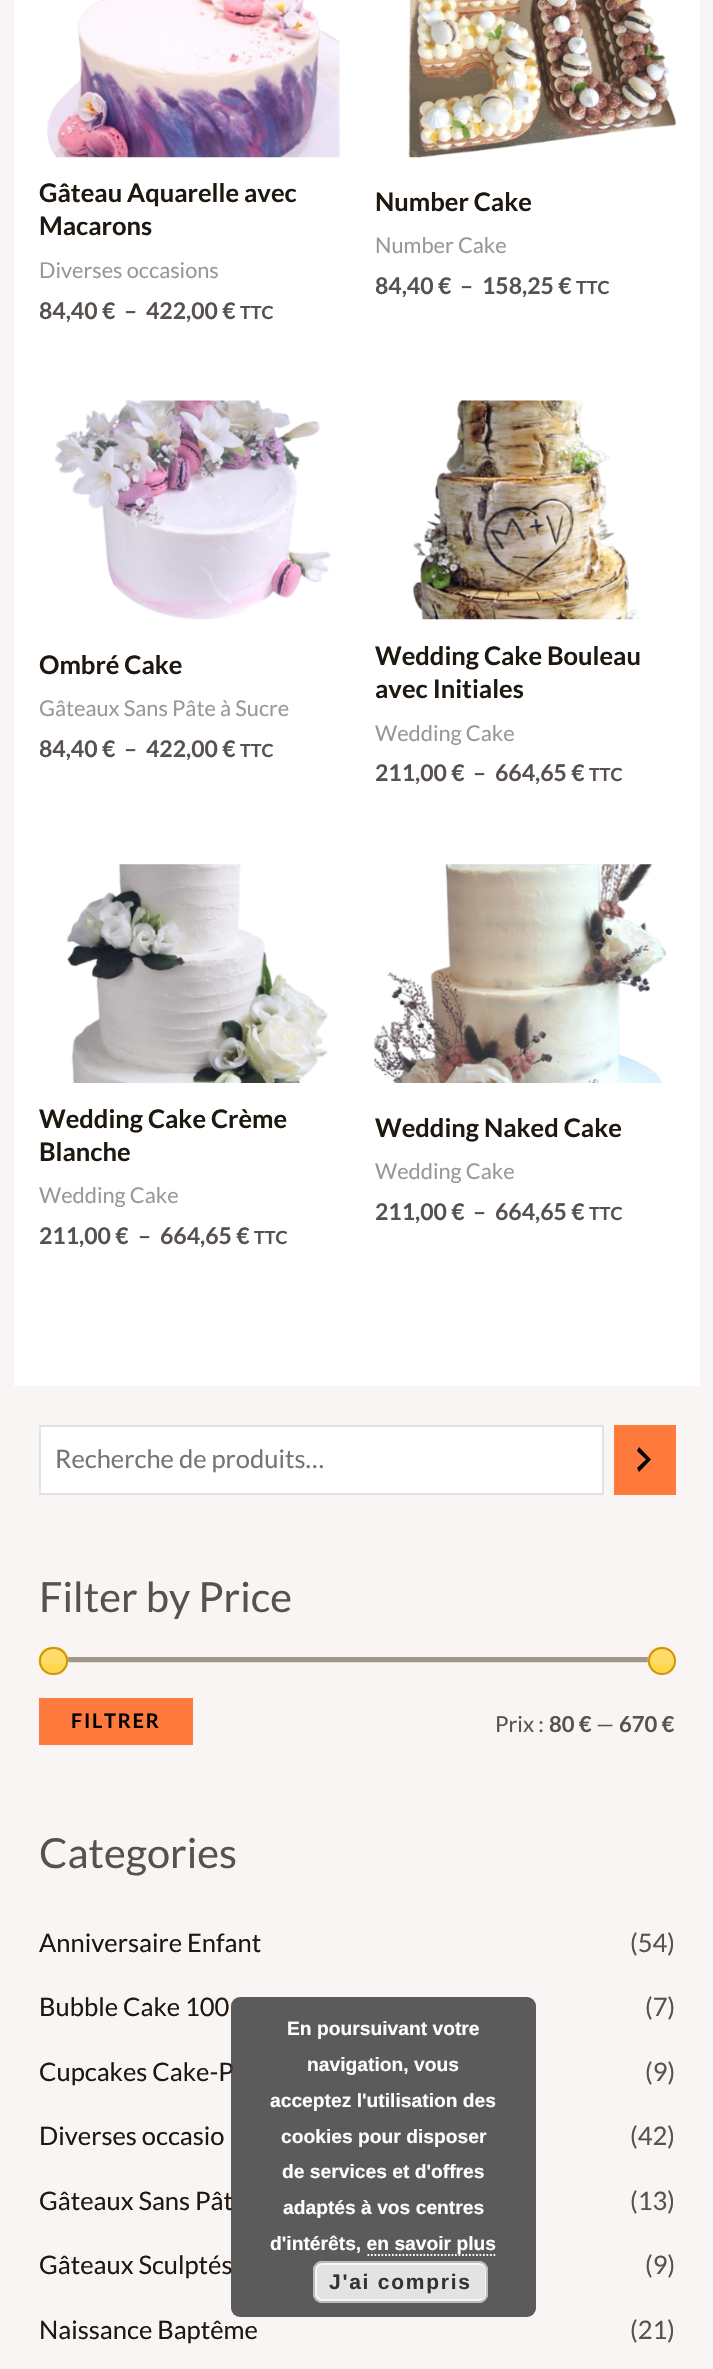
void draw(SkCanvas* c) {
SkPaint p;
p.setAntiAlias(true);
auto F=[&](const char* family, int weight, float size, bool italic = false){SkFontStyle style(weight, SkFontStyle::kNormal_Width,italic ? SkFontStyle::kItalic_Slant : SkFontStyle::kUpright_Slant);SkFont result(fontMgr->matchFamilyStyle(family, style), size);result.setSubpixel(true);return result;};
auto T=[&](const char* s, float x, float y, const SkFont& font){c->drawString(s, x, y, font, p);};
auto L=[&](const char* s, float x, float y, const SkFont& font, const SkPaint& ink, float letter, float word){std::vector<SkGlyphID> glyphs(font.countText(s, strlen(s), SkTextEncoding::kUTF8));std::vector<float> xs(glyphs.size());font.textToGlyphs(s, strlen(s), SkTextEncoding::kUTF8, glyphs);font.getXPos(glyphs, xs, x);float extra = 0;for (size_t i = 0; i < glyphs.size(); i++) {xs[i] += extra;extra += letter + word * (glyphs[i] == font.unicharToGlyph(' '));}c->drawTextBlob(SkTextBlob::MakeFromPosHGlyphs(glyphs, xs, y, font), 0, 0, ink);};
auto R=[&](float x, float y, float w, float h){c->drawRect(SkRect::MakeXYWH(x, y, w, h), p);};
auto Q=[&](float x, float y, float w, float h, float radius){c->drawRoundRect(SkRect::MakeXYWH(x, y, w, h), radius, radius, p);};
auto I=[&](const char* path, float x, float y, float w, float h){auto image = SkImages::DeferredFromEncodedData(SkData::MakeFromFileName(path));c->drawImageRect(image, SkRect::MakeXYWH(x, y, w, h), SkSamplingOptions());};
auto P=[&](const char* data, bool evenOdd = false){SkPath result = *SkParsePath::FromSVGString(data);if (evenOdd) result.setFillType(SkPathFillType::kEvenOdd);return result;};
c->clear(0xfff8f5f4);
p.setColor(0xffffffff);
R(14,0,686,1386);
I("1.png",47,0,293,158);
auto f1 = F("Lato",700,25.5);
p.setColor(0xff1e1810);
T("Gâteau Aquarelle avec",39,202,f1);
T("Macarons",39,235,f1);
auto f2 = F("Lato",400,21.75);
p.setColor(0xff9a9796);
T("Diverses occasions",39,278,f2);
auto f3 = F("Lato",700,23);
p.setColor(0xff575250);
T("84,40 €",39,319,f3);
T("–",124,319,f3);
T("422,00 €",146,319,f3);
auto f4 = F("Lato",700,18);
T("TTC",240,319,f4);
I("2.png",408,0,268,158);
p.setColor(0xff1e1810);
T("Number Cake",375,211,f1);
p.setColor(0xff9a9796);
T("Number Cake",375,253,f2);
p.setColor(0xff575250);
T("84,40 €",375,294,f3);
T("–",460,294,f3);
T("158,25 €",482,294,f3);
T("TTC",576,294,f4);
I("3.png",54,400,277,220);
p.setColor(0xff1e1810);
T("Ombré Cake",39,674,f1);
p.setColor(0xff9a9796);
T("Gâteaux Sans Pâte à Sucre",39,716,f2);
p.setColor(0xff575250);
T("84,40 €",39,757,f3);
T("–",124,757,f3);
T("422,00 €",146,757,f3);
T("TTC",240,757,f4);
I("4.png",412,400,229,220);
p.setColor(0xff1e1810);
T("Wedding Cake Bouleau",375,665,f1);
T("avec Initiales",375,698,f1);
p.setColor(0xff9a9796);
T("Wedding Cake",375,741,f2);
p.setColor(0xff575250);
T("211,00 €",375,781,f3);
T("–",473,781,f3);
T("664,65 €",495,781,f3);
T("TTC",589,781,f4);
I("5.png",67,864,262,219);
p.setColor(0xff1e1810);
T("Wedding Cake Crème",39,1128,f1);
T("Blanche",39,1161,f1);
p.setColor(0xff9a9796);
T("Wedding Cake",39,1203,f2);
p.setColor(0xff575250);
T("211,00 €",39,1244,f3);
T("–",138,1244,f3);
T("664,65 €",160,1244,f3);
T("TTC",254,1244,f4);
I("6.png",374,864,293,219);
p.setColor(0xff1e1810);
T("Wedding Naked Cake",375,1137,f1);
p.setColor(0xff9a9796);
T("Wedding Cake",375,1179,f2);
p.setColor(0xff575250);
T("211,00 €",375,1220,f3);
T("–",473,1220,f3);
T("664,65 €",495,1220,f3);
T("TTC",589,1220,f4);
p.setColor(0xffffffff);
c->drawRect(SkRect::MakeXYWH(40,1426,563,68),p);
p.setStroke(true);
p.setStrokeWidth(2);
p.setColor(0xffe2e2e2);
c->drawRect(SkRect::MakeXYWH(40,1426,563,68),p);
auto f5 = F("Lato",400,25.5);
p.setStroke(false);
p.setColor(0xff757575);
T("Recherche de produits…",55,1468,f5);
p.setColor(0xffff7a3d);
R(614,1425,62,70);
p.setColor(0xff000000);
c->drawPath(P("M637 1468l9-8.5l-9-8.5l2-4l12 12.5l-12 12.5z"),p);
auto f6 = F("Lato",400,41.5);
p.setColor(0xff575250);
T("Filter by Price",39,1612,f6);
I("8.png",67,1657,581,6);
I("7.png",38,1646,31,29);
p.setStroke(true);
p.setColor(0xffd19405);
c->drawRoundRect(SkRect::MakeXYWH(40,1648,27,26),13,13,p);
I("9.png",647,1646,29,29);
c->drawCircle(662,1661,13,p);
p.setStroke(false);
p.setColor(0xffff7a3d);
R(39,1698,154,47);
auto f7 = F("Lato",700,20);
p.setColor(0xff000000);
L("FILTRER",71,1728,f7,p,1.75,0);
auto f8 = F("Lato",400,22);
p.setColor(0xff575250);
T("Prix :",495,1732,f8);
auto f9 = F("Lato",700,22);
T("80 €",549,1732,f9);
T("—",596,1732,f8);
T("670 €",619,1732,f9);
T("Categories",39,1868,f6);
p.setColor(0xff1e1810);
T("Anniversaire Enfant",39,1952,f5);
p.setColor(0xff575250);
T("(54)",630,1952,f5);
p.setColor(0xff1e1810);
T("Bubble Cake 100",39,2016,f5);
p.setColor(0xff575250);
T("(7)",645,2016,f5);
p.setColor(0xff1e1810);
T("Cupcakes Cake-P",39,2081,f5);
p.setColor(0xff575250);
T("(9)",645,2081,f5);
p.setColor(0xff1e1810);
T("Diverses occasio",39,2145,f5);
p.setColor(0xff575250);
T("(42)",630,2145,f5);
p.setColor(0xff1e1810);
T("Gâteaux Sans Pât",39,2210,f5);
p.setColor(0xff575250);
T("(13)",630,2210,f5);
p.setColor(0xff1e1810);
T("Gâteaux Sculptés",39,2274,f5);
p.setColor(0xff575250);
T("(9)",645,2274,f5);
p.setColor(0xff1e1810);
T("Naissance Baptême",39,2339,f5);
p.setColor(0xff575250);
T("(21)",630,2339,f5);
p.setColor(0xd93f3f3f);
Q(231,1997,305,320,9);
auto f10 = F("Liberation Sans",700,19.25);
p.setColor(0xffffffff);
T("En poursuivant votre",287,2035,f10);
T("navigation, vous",307,2071,f10);
T("acceptez l'utilisation des",270,2107,f10);
T("cookies pour disposer",281,2143,f10);
T("de services et d'offres",282,2178,f10);
T("adaptés à vos centres",283,2214,f10);
T("d'intérêts, en savoir plus",270,2250,f10);
p.setStroke(true);
p.setStrokeWidth(1.8);
p.setPathEffect(SkDashPathEffect::Make({{1.75f,1.75f}}, 0));
c->drawPath(P("M367.5 2255h129.5"),p);
p.setPathEffect(nullptr);
p.setStroke(false);
p.setColor(0xffe3e3e3);
Q(313,2261,175,42,9);
p.setStroke(true);
p.setStrokeWidth(2);
p.setColor(0xfff6f6f6);
c->drawRoundRect(SkRect::MakeXYWH(316,2264,170,36),6,6,p);
p.setColor(0xffbbbbbb);
c->drawRoundRect(SkRect::MakeXYWH(314,2262,173,40),8,8,p);
auto f11 = F("Liberation Sans",700,21);
p.setStroke(false);
p.setColor(0xff333333);
L("J'ai compris",329,2289,f11,p,1.75,0);
}
